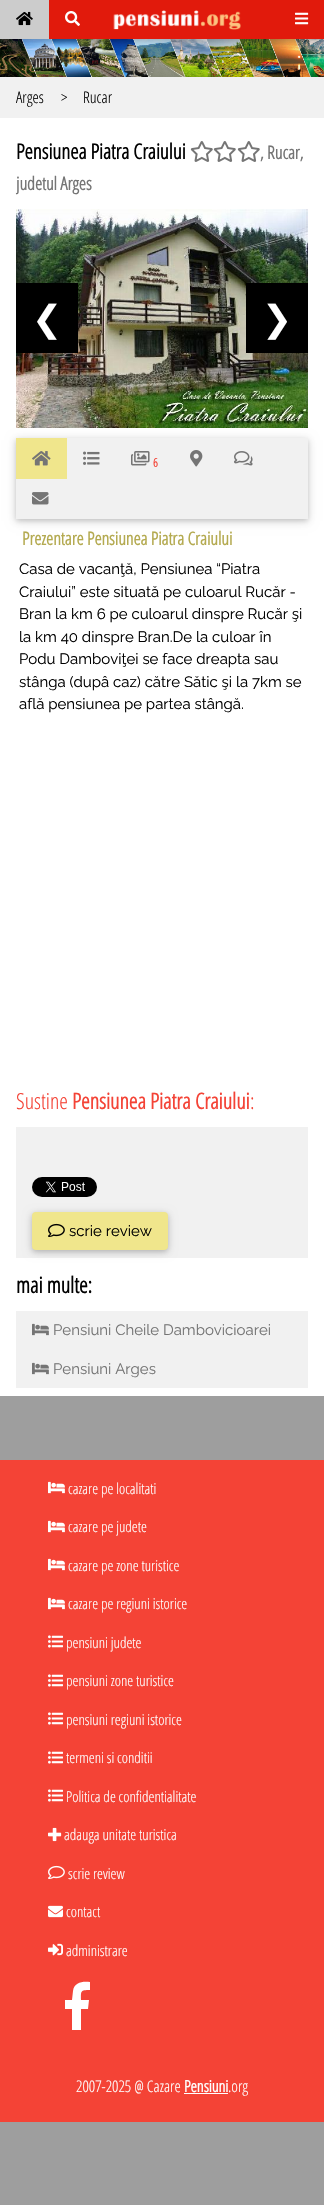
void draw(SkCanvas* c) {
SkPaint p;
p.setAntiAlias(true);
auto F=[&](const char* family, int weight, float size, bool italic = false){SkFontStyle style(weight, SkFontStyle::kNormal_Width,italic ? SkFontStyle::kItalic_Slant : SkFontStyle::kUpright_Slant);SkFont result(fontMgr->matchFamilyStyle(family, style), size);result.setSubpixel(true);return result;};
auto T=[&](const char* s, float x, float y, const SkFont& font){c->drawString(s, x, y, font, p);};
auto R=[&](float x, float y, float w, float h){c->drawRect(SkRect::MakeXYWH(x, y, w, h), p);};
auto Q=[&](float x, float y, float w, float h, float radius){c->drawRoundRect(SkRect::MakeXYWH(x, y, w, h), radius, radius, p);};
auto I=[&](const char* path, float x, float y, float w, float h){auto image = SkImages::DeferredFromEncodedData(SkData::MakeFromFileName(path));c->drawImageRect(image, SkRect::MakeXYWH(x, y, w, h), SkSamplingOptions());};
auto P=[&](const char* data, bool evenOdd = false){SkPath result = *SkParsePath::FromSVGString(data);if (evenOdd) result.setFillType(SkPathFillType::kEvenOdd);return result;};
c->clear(0xff9e9e9e);
I("5.png",0,39,324,38);
p.setColor(0x1f000000);
p.setMaskFilter(SkMaskFilter::MakeBlur(kNormal_SkBlurStyle, 5));
c->drawRect(SkRect::MakeXYWH(0,2,324,39),p);
p.setMaskFilter(nullptr);
p.setColor(0x29000000);
p.setMaskFilter(SkMaskFilter::MakeBlur(kNormal_SkBlurStyle, 2.5));
c->drawRect(SkRect::MakeXYWH(0,2,324,39),p);
p.setMaskFilter(nullptr);
p.setColor(0xffe11a0c);
R(49,0,275,39);
p.setColor(0xffcccccc);
R(0,0,49,39);
I("1.png",16,11,17,15);
I("2.png",65,11,15,15);
I("3.png",113,10,128,20);
I("4.png",295,12,14,13);
p.setColor(0xfff1f1f1);
R(0,77,324,41);
auto f1 = F("Open Sans Condensed",300,16);
p.setColor(0xff000000);
T("Arges",16,103,f1);
T(">",61,103,f1);
T("Rucar",83,103,f1);
p.setColor(0xffffffff);
R(0,118,324,1278);
auto f2 = F("Open Sans Condensed",700,21);
p.setColor(0xff000000);
T("Pensiunea Piatra Craiului",16,159,f2);
I("6.png",190,141,23,21);
I("6.png",213,141,23,21);
I("6.png",237,141,23,21);
auto f3 = F("Open Sans Condensed",700,18);
p.setColor(0xff757575);
T(", Rucar,",260,159,f3);
T("judetul Arges",16,190,f3);
p.setColor(0x1f000000);
p.setMaskFilter(SkMaskFilter::MakeBlur(kNormal_SkBlurStyle, 5));
c->drawRect(SkRect::MakeXYWH(16,440,292,81),p);
p.setMaskFilter(nullptr);
I("7.png",16,209,292,219);
p.setColor(0xff000000);
R(16,283,62,70);
auto f4 = F("DejaVu Sans",400,36);
p.setColor(0xffffffff);
T("❮",32,331,f4);
p.setColor(0xff000000);
R(246,283,62,70);
p.setColor(0xffffffff);
T("❯",262,331,f4);
p.setColor(0x29000000);
p.setMaskFilter(SkMaskFilter::MakeBlur(kNormal_SkBlurStyle, 2.5));
c->drawRect(SkRect::MakeXYWH(16,440,292,81),p);
p.setMaskFilter(nullptr);
p.setColor(0xfff1f1f1);
R(16,438,292,81);
p.setColor(0xfff0e68c);
R(16,438,51,41);
I("8.png",32,451,19,15);
I("9.png",83,451,17,14);
I("10.png",131,451,19,15);
auto f5 = F("Open Sans Condensed",700,12);
p.setColor(0xfff44336);
T("6",153,467,f5);
I("11.png",190,450,13,17);
I("12.png",234,451,19,15);
I("13.png",32,492,17,13);
p.setColor(0xffb4aa50);
T("Prezentare Pensiunea Piatra Craiului",22,545,f3);
auto f6 = F("Raleway",100,15);
p.setColor(0xff000000);
T("Casa de vacanţă, Pensiunea “Piatra",19,574,f6);
T("Craiului” este situată pe culoarul Rucăr -",19,597,f6);
T("Bran la km 6 pe culoarul dinspre Rucăr şi",19,619,f6);
T("la km 40 dinspre Bran.De la culoar în",19,642,f6);
T("Podu Damboviţei se face dreapta sau",19,664,f6);
T("stânga (dupâ caz) către Sătic şi la 7km se",19,687,f6);
T("află pensiunea pe partea stângă.",19,709,f6);
auto f7 = F("Open Sans Condensed",300,22);
p.setColor(0xfff44336);
T("Sustine",16,1109,f7);
auto f8 = F("Open Sans Condensed",700,22);
T("Pensiunea Piatra Craiului",72,1109,f8);
T(":",250,1109,f7);
p.setColor(0xfff1f1f1);
R(16,1127,292,131);
I("14.png",32,1177,65,20);
p.setColor(0x1f000000);
p.setMaskFilter(SkMaskFilter::MakeBlur(kNormal_SkBlurStyle, 5));
c->drawRoundRect(SkRect::MakeXYWH(32,1214,136,38),4,4,p);
p.setMaskFilter(nullptr);
p.setColor(0x29000000);
p.setMaskFilter(SkMaskFilter::MakeBlur(kNormal_SkBlurStyle, 2.5));
c->drawRoundRect(SkRect::MakeXYWH(32,1214,136,38),4,4,p);
p.setMaskFilter(nullptr);
p.setColor(0xfff0e68c);
Q(32,1212,136,38,4);
I("15.png",48,1223,17,14);
p.setColor(0xff000000);
T("scrie review",69,1236,f6);
T("mai multe:",16,1293,f8);
p.setColor(0xfff1f1f1);
R(16,1311,292,77);
I("16.png",32,1323,17,13);
p.setColor(0xff757575);
T("Pensiuni Cheile Dambovicioarei",53,1335,f6);
I("16.png",32,1362,17,13);
T("Pensiuni Arges",53,1374,f6);
p.setColor(0xfff44336);
R(0,1460,324,662);
I("17.png",48,1481,17,13);
auto f9 = F("Open Sans Condensed",300,15);
p.setColor(0xffffffff);
T("cazare pe localitati",68,1494,f9);
I("17.png",48,1520,17,13);
T("cazare pe judete",68,1532,f9);
I("17.png",48,1558,17,13);
T("cazare pe zone turistice",68,1571,f9);
I("17.png",48,1597,17,13);
T("cazare pe regiuni istorice",68,1609,f9);
I("18.png",48,1635,15,13);
T("pensiuni judete",66,1648,f9);
I("18.png",48,1674,15,13);
T("pensiuni zone turistice",66,1686,f9);
I("18.png",48,1712,15,13);
T("pensiuni regiuni istorice",66,1725,f9);
I("18.png",48,1751,15,13);
T("termeni si conditii",66,1763,f9);
I("18.png",48,1789,15,13);
T("Politica de confidentialitate",66,1802,f9);
I("19.png",48,1827,14,15);
T("adauga unitate turistica",64,1840,f9);
I("20.png",48,1865,17,14);
T("scrie review",68,1879,f9);
I("21.png",48,1905,15,13);
T("contact",66,1917,f9);
I("22.png",48,1943,15,13);
T("administrare",66,1956,f9);
c->drawPath(P("M72 2030v-21h-7v-9h7l1-9c1-9 10-10 17-9v8c-10 0-9 1-9 10h8l-1 9h-7v21"),p);
T("2007-2025 @ Cazare",76,2092,f1);
auto f10 = F("Open Sans Condensed",700,16);
T("Pensiuni",184,2092,f10);
R(184,2093,44,1);
T(".org",228,2092,f1);
}
